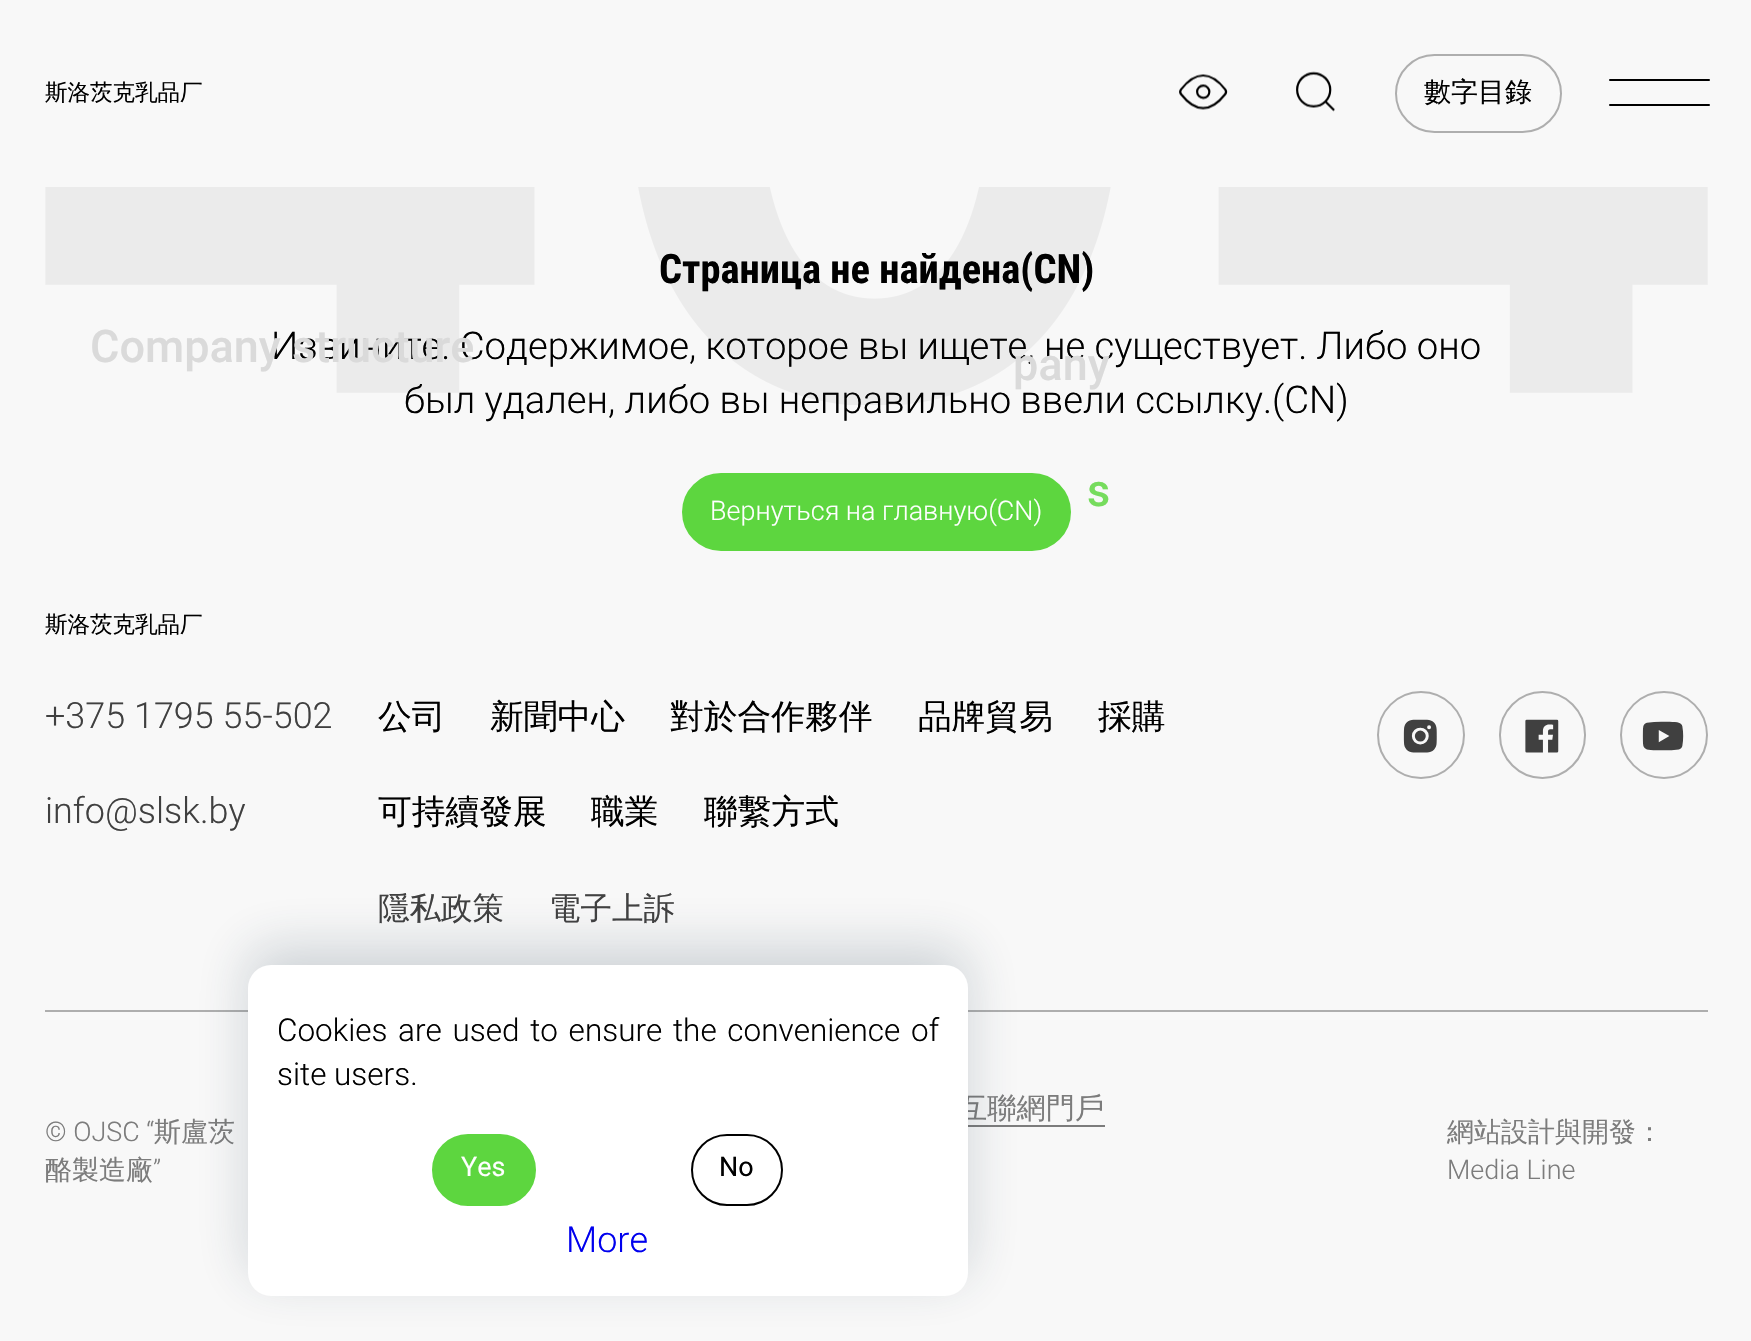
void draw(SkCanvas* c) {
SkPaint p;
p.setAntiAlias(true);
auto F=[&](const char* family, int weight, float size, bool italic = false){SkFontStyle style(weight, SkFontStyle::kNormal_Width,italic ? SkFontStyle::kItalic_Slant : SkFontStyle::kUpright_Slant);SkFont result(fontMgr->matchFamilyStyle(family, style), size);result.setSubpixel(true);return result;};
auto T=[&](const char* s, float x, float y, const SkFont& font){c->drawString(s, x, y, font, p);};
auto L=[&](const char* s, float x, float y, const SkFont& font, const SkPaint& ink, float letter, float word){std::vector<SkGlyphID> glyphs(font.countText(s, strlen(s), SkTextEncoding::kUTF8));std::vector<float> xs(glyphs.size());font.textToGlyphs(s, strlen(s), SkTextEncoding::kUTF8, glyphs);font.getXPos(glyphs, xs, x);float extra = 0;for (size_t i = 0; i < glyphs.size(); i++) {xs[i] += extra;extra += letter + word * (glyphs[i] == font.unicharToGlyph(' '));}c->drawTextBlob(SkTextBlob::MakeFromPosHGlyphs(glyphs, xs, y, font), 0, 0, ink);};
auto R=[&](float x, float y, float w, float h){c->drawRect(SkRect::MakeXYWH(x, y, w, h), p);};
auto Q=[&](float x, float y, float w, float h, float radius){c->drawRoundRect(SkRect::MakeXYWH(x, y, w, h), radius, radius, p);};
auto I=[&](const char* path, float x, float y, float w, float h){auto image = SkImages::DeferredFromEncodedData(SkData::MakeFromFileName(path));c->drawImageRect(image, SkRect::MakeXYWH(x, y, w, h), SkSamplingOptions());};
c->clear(0xfff8f8f8);
auto f1 = F("WenQuanYi Zen Hei",500,22.5);
p.setColor(0xff000000);
T("斯洛茨克乳品厂",45,100,f1);
I("1.png",1179,74,49,36);
I("2.png",1296,71,39,41);
p.setStroke(true);
p.setStrokeWidth(2);
p.setColor(0xffaeaeae);
c->drawRoundRect(SkRect::MakeXYWH(1396,55,165,77),38.5,38.5,p);
auto f2 = F("WenQuanYi Zen Hei",500,27);
p.setStroke(false);
p.setColor(0xff000000);
T("數字目錄",1424,101,f2);
Q(1609,79,101,2,1);
Q(1609,104,101,2,1);
I("3.png",45,187,1663,218);
auto f3 = F("Roboto Condensed",700,40.5);
T("Страница не найдена(CN)",659,283,f3);
auto f4 = F("Roboto",300,38.25);
T("Извините. Содержимое, которое вы ищете, не существует. Либо оно",271,359,f4);
T("был удален, либо вы неправильно ввели ссылку.(CN)",404,413,f4);
p.setColor(0xff5dd63f);
c->drawRoundRect(SkRect::MakeXYWH(683,474,387,76),38,38,p);
p.setStroke(true);
c->drawRoundRect(SkRect::MakeXYWH(683,474,387,76),38,38,p);
auto f5 = F("Roboto",300,27);
p.setStroke(false);
p.setColor(0xffffffff);
T("Вернуться на главную(CN)",710,520,f5);
p.setColor(0xff000000);
T("斯洛茨克乳品厂",45,632,f1);
auto f6 = F("Roboto",300,36);
p.setColor(0xff404040);
T("+375 1795 55-502",45,728,f6);
T("info@slsk.by",45,823,f6);
auto f7 = F("WenQuanYi Zen Hei",500,33.75);
p.setColor(0xff000000);
T("公司",378,728,f7);
T("新聞中心",490,728,f7);
T("對於合作夥伴",670,728,f7);
T("品牌貿易",918,728,f7);
T("採購",1098,728,f7);
T("可持續發展",378,823,f7);
T("職業",591,823,f7);
T("聯繫方式",704,823,f7);
auto f8 = F("WenQuanYi Zen Hei",500,31.5);
p.setColor(0xff404040);
T("隱私政策",378,919,f8);
T("電子上訴",549,919,f8);
p.setStroke(true);
p.setColor(0xffaeaeae);
c->drawCircle(1421,735,43,p);
I("4.png",1403,719,34,34);
c->drawRoundRect(SkRect::MakeXYWH(1500,692,85,86),42.5,42.5,p);
I("5.png",1525,719,34,34);
c->drawCircle(1664,735,43,p);
I("6.png",1642,721,42,30);
p.setStroke(false);
R(45,1010,1663,2);
auto f9 = F("WenQuanYi Zen Hei",500,29.25);
p.setColor(0xff7c7c7c);
T("互聯網門戶",958,1118,f9);
R(968,1125,137,2);
T("© OJSC “",45,1141,f5);
T("斯盧茨",154,1141,f2);
T("酪製造廠",45,1179,f2);
T("”",153,1179,f5);
T("網站設計與開發：",1447,1141,f2);
T("Media Line",1447,1179,f5);
p.setColor(0x33223c50);
p.setMaskFilter(SkMaskFilter::MakeBlur(kNormal_SkBlurStyle, 26));
c->drawRoundRect(SkRect::MakeXYWH(248,947,720,331),23,23,p);
p.setMaskFilter(nullptr);
p.setColor(0xffffffff);
Q(248,965,720,331,23);
auto f10 = F("Roboto",300,31.5);
p.setColor(0xff000000);
L("Cookies are used to ensure the convenience of",277,1041,f10,p,0,3);
T("site users.",277,1085,f10);
p.setColor(0xff5dd63f);
c->drawRoundRect(SkRect::MakeXYWH(433,1135,102,70),35,35,p);
p.setStroke(true);
c->drawRoundRect(SkRect::MakeXYWH(433,1135,102,70),35,35,p);
auto f11 = F("Roboto",400,27);
p.setStroke(false);
p.setColor(0xffffffff);
T("Yes",461,1176,f11);
p.setStroke(true);
p.setColor(0xff000000);
c->drawRoundRect(SkRect::MakeXYWH(692,1135,90,70),35,35,p);
p.setStroke(false);
T("No",719,1176,f11);
p.setColor(0xff0000ee);
T("More",566,1252,f6);
auto f12 = F("Roboto",500,45);
p.setColor(0xffdadada);
T("Company structure",90,362,f12);
T("pany",1013,380,f12);
p.setColor(0xff76dc5d);
T("s",1087,506,f12);
}
